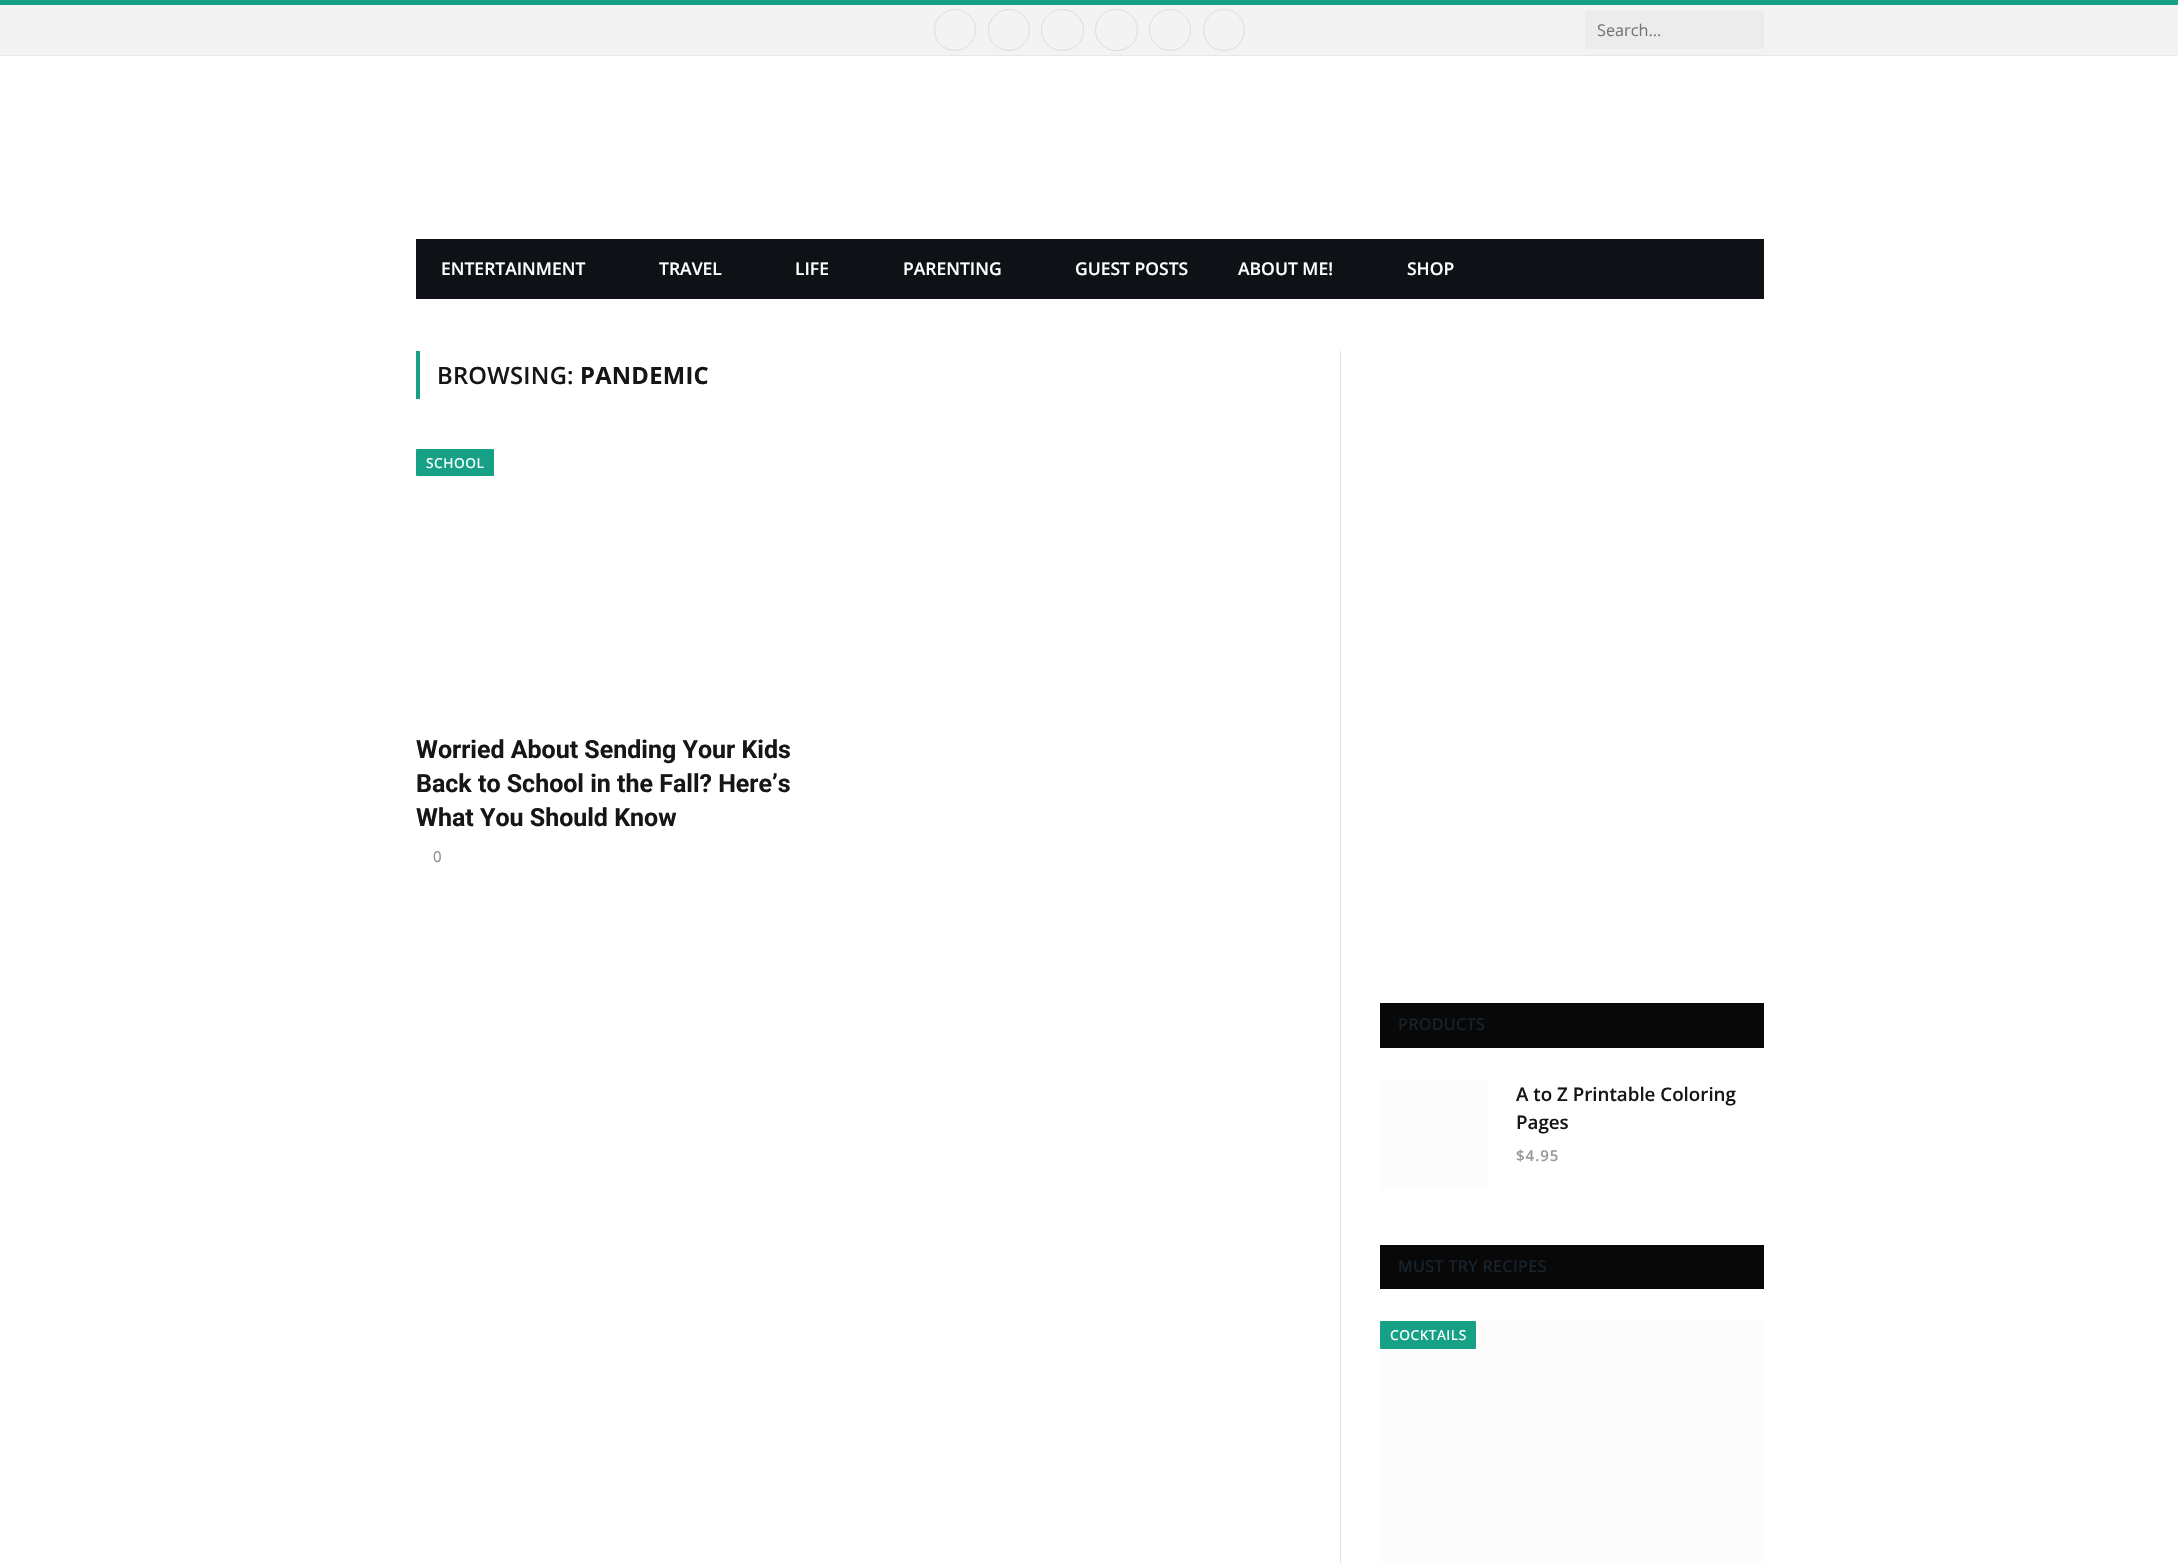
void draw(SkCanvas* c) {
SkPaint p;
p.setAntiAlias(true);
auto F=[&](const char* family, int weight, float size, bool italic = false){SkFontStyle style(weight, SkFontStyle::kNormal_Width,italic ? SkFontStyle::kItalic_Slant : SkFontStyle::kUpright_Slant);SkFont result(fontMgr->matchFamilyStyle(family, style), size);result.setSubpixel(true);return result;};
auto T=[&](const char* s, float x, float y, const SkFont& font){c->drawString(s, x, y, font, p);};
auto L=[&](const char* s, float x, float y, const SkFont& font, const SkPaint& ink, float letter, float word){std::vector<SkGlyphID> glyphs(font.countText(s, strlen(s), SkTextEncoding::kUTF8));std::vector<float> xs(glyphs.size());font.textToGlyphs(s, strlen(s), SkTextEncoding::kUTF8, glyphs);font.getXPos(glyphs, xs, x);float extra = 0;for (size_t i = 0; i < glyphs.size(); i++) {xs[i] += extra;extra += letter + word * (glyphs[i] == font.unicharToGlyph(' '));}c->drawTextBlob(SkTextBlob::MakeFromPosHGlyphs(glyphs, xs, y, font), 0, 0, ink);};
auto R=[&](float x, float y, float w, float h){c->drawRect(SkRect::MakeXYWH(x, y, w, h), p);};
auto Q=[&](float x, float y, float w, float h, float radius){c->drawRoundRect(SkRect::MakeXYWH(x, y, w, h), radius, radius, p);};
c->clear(0xffffffff);
p.setColor(0xfff3f3f3);
R(0,5,2178,50);
p.setColor(0xff16a085);
R(0,0,2178,5);
p.setColor(0xffe8e8e8);
R(0,55,2178,1);
p.setStroke(true);
p.setStrokeWidth(1);
p.setColor(0xffdddddd);
c->drawCircle(955,30,20.5,p);
c->drawCircle(1009,30,20.5,p);
c->drawRoundRect(SkRect::MakeXYWH(1041.5,9.5,42,41),20.5,20.5,p);
c->drawRoundRect(SkRect::MakeXYWH(1095.5,9.5,42,41),20.5,20.5,p);
c->drawCircle(1170,30,20.5,p);
c->drawCircle(1224,30,20.5,p);
p.setStroke(false);
p.setColor(0xffececec);
Q(1585,11,179,38,2.5);
c->save();
c->clipRect(SkRect::MakeXYWH(1598,19,153,22));
auto f1 = F("Open Sans",400,16.25);
p.setColor(0xff777777);
T("Search...",1597,36,f1);
c->restore();
p.setColor(0xff0e1216);
R(416,239,1348,60);
auto f2 = F("Open Sans",600,17.5);
p.setColor(0xffffffff);
T("ENTERTAINMENT",441,275,f2);
T("TRAVEL",659,275,f2);
T("LIFE",795,275,f2);
T("PARENTING",903,275,f2);
T("GUEST POSTS",1075,275,f2);
T("ABOUT ME!",1238,275,f2);
T("SHOP",1407,275,f2);
p.setColor(0xff16a085);
R(416,351,4,48);
auto f3 = F("Open Sans",600,23.75);
p.setColor(0xff161616);
L("BROWSING:",437,384,f3,p,.25,0);
auto f4 = F("Open Sans",700,23.75);
L("PANDEMIC",580,384,f4,p,.25,0);
p.setColor(0xff16a085);
Q(416,449,78,27,1);
auto f5 = F("Open Sans",500,13.75);
p.setColor(0xffffffff);
L("SCHOOL",426,468,f5,p,.5,0);
auto f6 = F("Roboto",700,25);
p.setColor(0xff161616);
T("Worried About Sending Your Kids",416,758,f6);
T("Back to School in the Fall? Here’s",416,792,f6);
T("What You Should Know",416,826,f6);
auto f7 = F("Open Sans",400,15);
p.setColor(0xff8a8a8a);
T("0",433,862,f7);
p.setColor(0xffe2e2e2);
R(1340,351,1,1212);
p.setColor(0xff080808);
R(1380,1003,384,45);
auto f8 = F("Open Sans",500,16.25);
p.setColor(0xff19232d);
L("PRODUCTS",1398,1030,f8,p,.3,0);
p.setColor(0xfffcfcfc);
R(1380,1080,109,109);
auto f9 = F("Open Sans",600,18.75);
p.setColor(0xff161616);
T("A to Z Printable Coloring",1516,1101,f9);
T("Pages",1516,1129,f9);
auto f10 = F("Open Sans",600,15);
p.setColor(0xff999999);
L("$4.95",1516,1161,f10,p,1,0);
p.setColor(0xff080808);
R(1380,1245,384,44);
p.setColor(0xff19232d);
L("MUST TRY RECIPES",1398,1272,f8,p,.3,0);
p.setColor(0xfffcfcfc);
R(1380,1321,384,242);
p.setColor(0xff16a085);
Q(1380,1321,96,28,1);
p.setColor(0xffffffff);
L("COCKTAILS",1390,1340,f5,p,.5,0);
}
